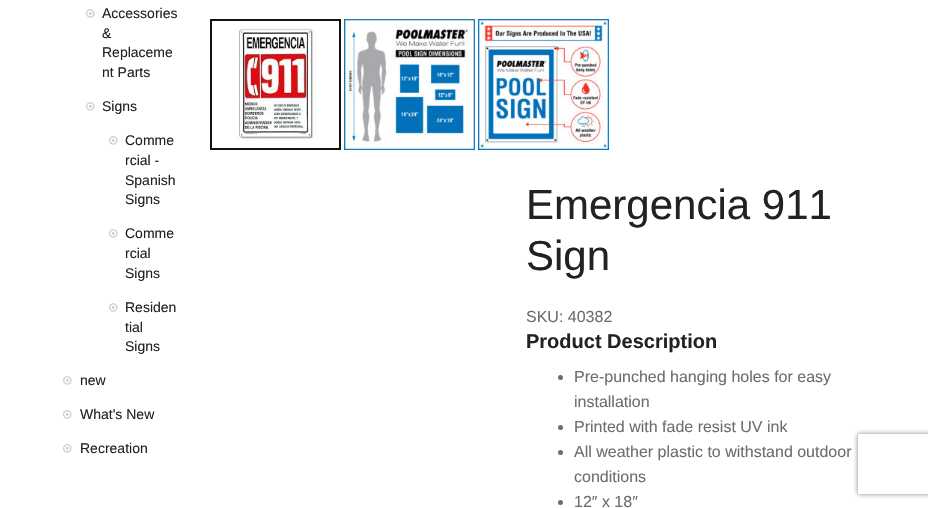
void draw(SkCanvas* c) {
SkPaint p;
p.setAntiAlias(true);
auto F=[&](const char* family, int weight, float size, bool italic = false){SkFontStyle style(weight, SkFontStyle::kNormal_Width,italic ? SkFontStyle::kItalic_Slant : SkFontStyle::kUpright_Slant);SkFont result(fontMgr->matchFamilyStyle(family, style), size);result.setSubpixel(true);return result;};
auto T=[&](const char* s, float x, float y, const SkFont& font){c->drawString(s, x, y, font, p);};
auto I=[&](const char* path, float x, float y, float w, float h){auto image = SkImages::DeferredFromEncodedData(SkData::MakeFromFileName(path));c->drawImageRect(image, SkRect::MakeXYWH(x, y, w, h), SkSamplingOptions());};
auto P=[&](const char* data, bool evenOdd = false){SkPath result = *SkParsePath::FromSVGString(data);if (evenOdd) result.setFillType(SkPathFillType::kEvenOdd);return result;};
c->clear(0xffffffff);
I("1.png",86,9,9,9);
auto f1 = F("Liberation Sans",400,14);
p.setColor(0xff222222);
T("Accessories",102,18,f1);
T("&",102,38,f1);
T("Replaceme",102,57,f1);
T("nt Parts",102,77,f1);
I("1.png",86,102,9,9);
T("Signs",102,111,f1);
I("1.png",109,136,9,9);
T("Comme",125,145,f1);
T("rcial -",125,165,f1);
T("Spanish",125,185,f1);
T("Signs",125,204,f1);
I("1.png",109,229,9,9);
T("Comme",125,238,f1);
T("rcial",125,258,f1);
T("Signs",125,278,f1);
I("1.png",109,303,9,9);
T("Residen",125,312,f1);
T("tial",125,332,f1);
T("Signs",125,351,f1);
I("1.png",63,376,9,9);
T("new",80,385,f1);
I("1.png",63,410,9,9);
T("What's New",80,419,f1);
I("1.png",63,444,9,9);
T("Recreation",80,453,f1);
I("2.png",236,28,82,111);
p.setStroke(true);
p.setStrokeWidth(2);
p.setColor(0xff111111);
c->drawRect(SkRect::MakeXYWH(211,20,129,129),p);
I("3.png",344,19,131,131);
I("4.png",478,19,131,131);
auto f2 = F("Liberation Sans",400,42);
p.setStroke(false);
p.setColor(0xff222222);
T("Emergencia 911",526,219,f2);
T("Sign",526,270,f2);
auto f3 = F("Liberation Sans",400,16);
p.setColor(0xff6d6d6d);
T("SKU: 40382",526,322,f3);
auto f4 = F("Liberation Sans",700,20);
p.setColor(0xff222222);
T("Product Description",526,348,f4);
p.setColor(0xff6d6d6d);
c->drawCircle(560.5,377.5,2.5,p);
T("Pre-punched hanging holes for easy",574,382,f3);
T("installation",574,407,f3);
c->drawCircle(560.5,427.5,2.5,p);
T("Printed with fade resist UV ink",574,432,f3);
c->drawCircle(560.5,452.5,2.5,p);
T("All weather plastic to withstand outdoor",574,457,f3);
T("conditions",574,482,f3);
c->drawCircle(560.5,502.5,2.5,p);
T("12″ x 18″",574,507,f3);
c->save();
c->clipPath(P("M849 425h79v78h-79zm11 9h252c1 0 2 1 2 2v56c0 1-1 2-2 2h-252c-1 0-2-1-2-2v-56c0-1 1-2 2-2z",true),true);
p.setColor(0xff808080);
p.setMaskFilter(SkMaskFilter::MakeBlur(kNormal_SkBlurStyle, 2.5));
c->drawRoundRect(SkRect::MakeXYWH(858,434,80,60),2,2,p);
p.setMaskFilter(nullptr);
c->restore();
}
